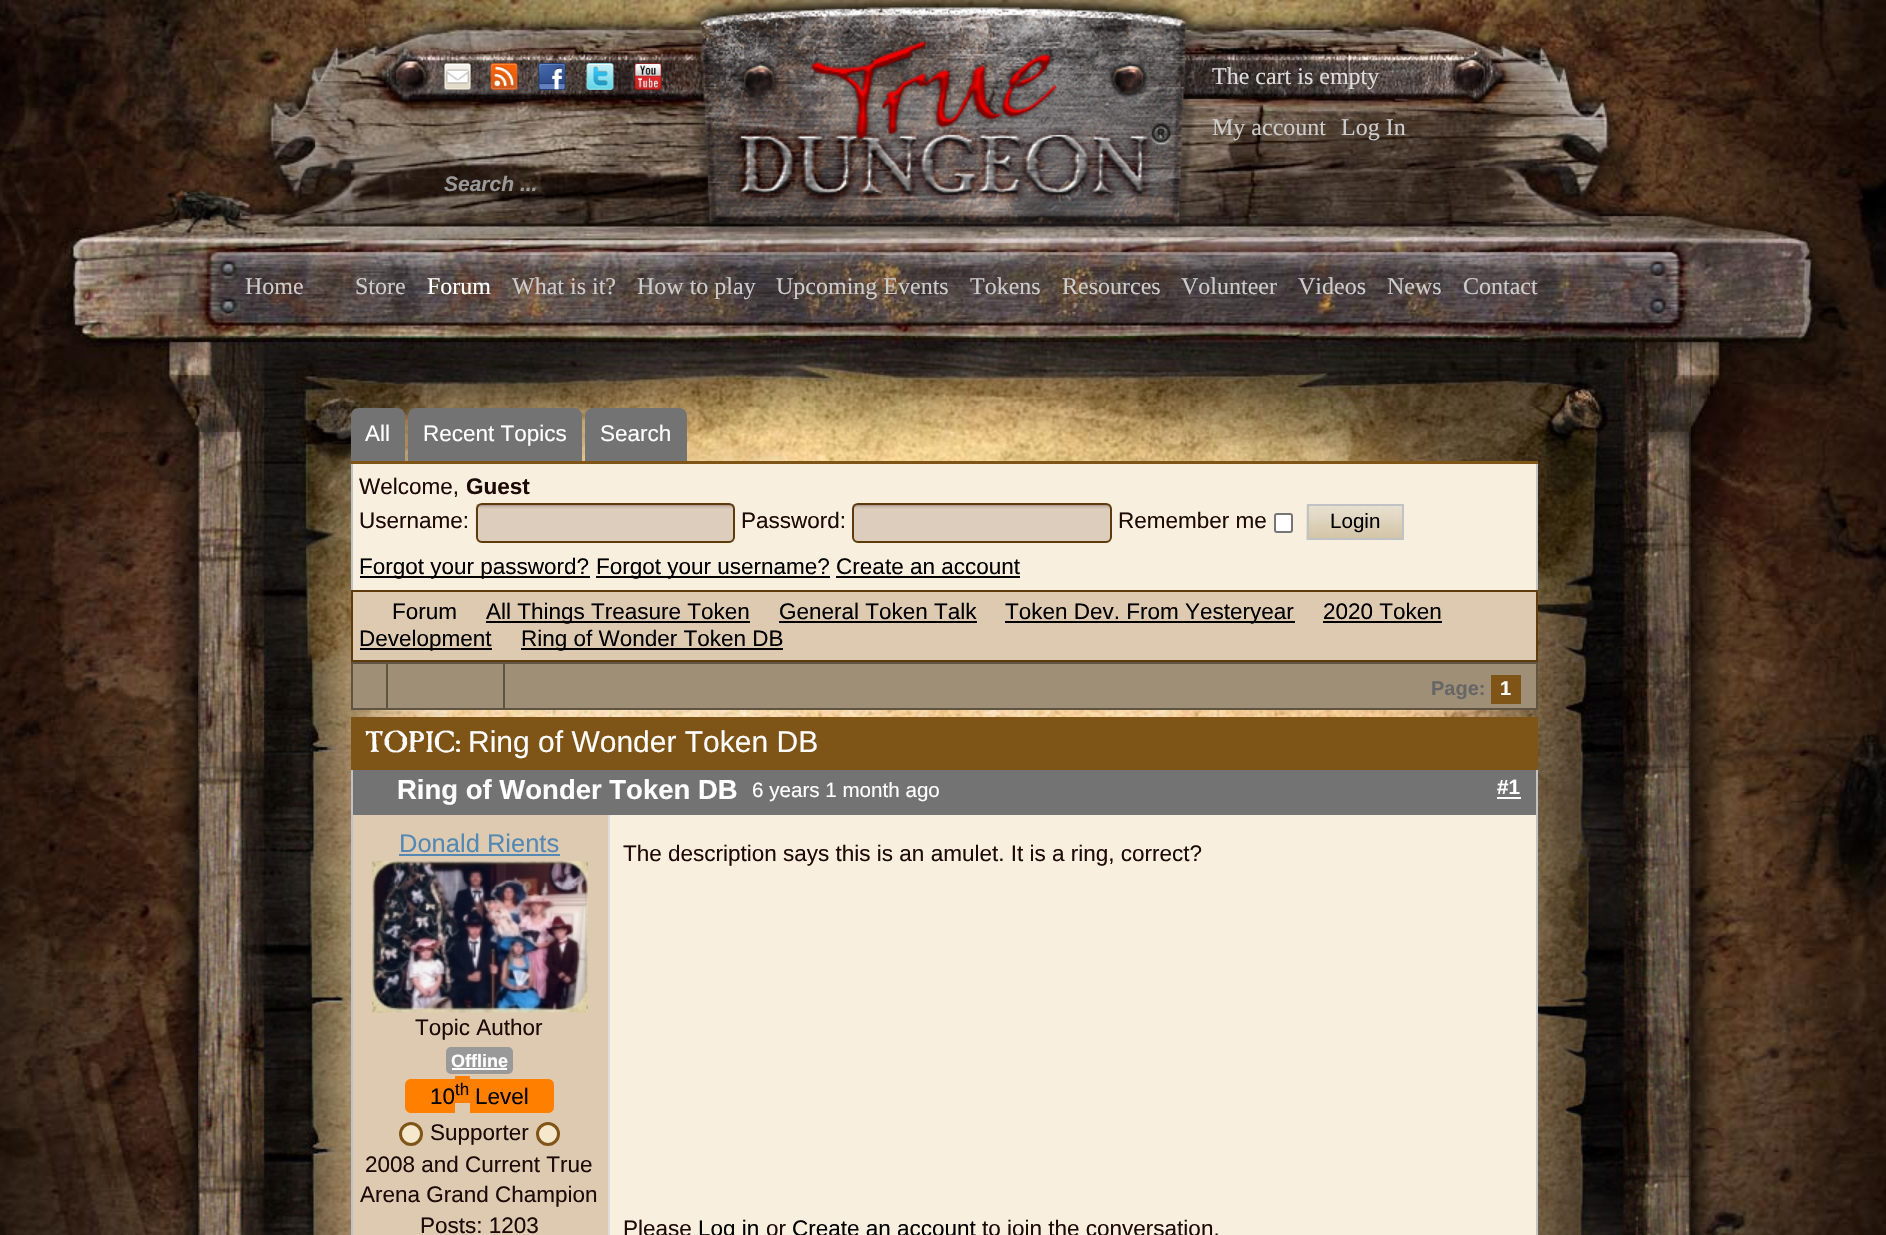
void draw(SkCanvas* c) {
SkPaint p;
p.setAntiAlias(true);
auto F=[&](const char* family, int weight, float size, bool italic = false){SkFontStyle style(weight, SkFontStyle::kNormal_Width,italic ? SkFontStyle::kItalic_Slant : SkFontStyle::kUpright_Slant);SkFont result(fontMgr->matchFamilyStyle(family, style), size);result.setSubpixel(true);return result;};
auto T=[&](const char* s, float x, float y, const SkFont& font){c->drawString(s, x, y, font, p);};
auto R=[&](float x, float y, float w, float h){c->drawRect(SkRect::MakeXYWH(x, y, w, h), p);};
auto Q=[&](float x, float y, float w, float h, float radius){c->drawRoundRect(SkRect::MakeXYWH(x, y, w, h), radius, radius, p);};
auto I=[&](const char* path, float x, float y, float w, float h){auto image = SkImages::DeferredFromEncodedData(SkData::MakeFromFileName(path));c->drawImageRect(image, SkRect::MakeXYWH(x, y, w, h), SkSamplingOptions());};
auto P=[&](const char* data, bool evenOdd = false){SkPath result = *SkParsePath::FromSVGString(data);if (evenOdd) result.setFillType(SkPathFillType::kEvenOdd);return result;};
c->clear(0xffffffff);
I("1.png",0,0,1886,1235);
I("2.png",691,7,506,225);
auto f1 = F("Liberation Serif",400,24);
p.setColor(0xffdddddd);
T("The cart is empty",1212,84,f1);
p.setColor(0xffcccccc);
T("My account",1212,135,f1);
T("Log In",1341,135,f1);
I("3.png",444,63,27,27);
I("4.png",490,63,28,27);
I("5.png",538,63,28,27);
I("6.png",586,63,28,27);
I("7.png",634,63,28,27);
p.setColor(0x12000000);
c->drawPath(P("M459 162h265c13 0 23 10 23 22c0-13-10-23-23-23h-264c-8 0-15 4-19 9c5-5 11-8 18-8z"),p);
auto f2 = F("Liberation Sans",700,21,true);
p.setColor(0xff999999);
T("Search ...",444,191,f2);
p.setColor(0xffcccccc);
T("Home",245,294,f1);
T("Store",355,294,f1);
p.setColor(0xffffffff);
T("Forum",427,294,f1);
p.setColor(0xffcccccc);
T("What is it?",512,294,f1);
T("How to play",637,294,f1);
T("Upcoming Events",776,294,f1);
T("Tokens",970,294,f1);
T("Resources",1062,294,f1);
T("Volunteer",1181,294,f1);
T("Videos",1298,294,f1);
T("News",1387,294,f1);
T("Contact",1463,294,f1);
I("8.png",198,336,1493,899);
I("9.png",198,336,1493,416);
p.setColor(0xff7f5417);
R(351,461,1187,3);
p.setColor(0xff737373);
c->drawPath(P("M359 408h38c4.5 0 8 3.5 8 8v45h-54v-45c0-4.5 3.5-8 8-8z"),p);
auto f3 = F("Liberation Sans",400,22.5);
p.setColor(0xffffffff);
T("All",365,441,f3);
p.setColor(0xff737373);
c->drawPath(P("M416 408h158c4.5 0 8 3.5 8 8v45h-174v-45c0-4.5 3.5-8 8-8z"),p);
p.setColor(0xffffffff);
T("Recent Topics",423,441,f3);
p.setColor(0xff737373);
c->drawPath(P("M593 408h86c4.5 0 8 3.5 8 8v45h-102v-45c0-4.5 3.5-8 8-8z"),p);
p.setColor(0xffffffff);
T("Search",600,441,f3);
p.setColor(0xfff9efde);
R(353,464,1183,126);
p.setColor(0xffbfc3c6);
R(1536,464,2,126);
R(351,464,2,126);
p.setColor(0xff1d0906);
T("Welcome,",359,494,f3);
auto f4 = F("Liberation Sans",700,22.5);
T("Guest",466,494,f4);
T("Username:",359,528,f3);
I("10.png",475,504,260,39);
p.setColor(0x12000000);
c->drawPath(P("M482 506h247c2 0 5 2 5 4c0-3-2-6-5-6h-247c-3 0-5 3-5 6c0-2 2-4 5-4z"),p);
p.setStroke(true);
p.setStrokeWidth(2);
p.setColor(0xff5e3b0b);
c->drawRoundRect(SkRect::MakeXYWH(477,504,257,38),5,5,p);
p.setStroke(false);
p.setColor(0xff1d0906);
T("Password:",741,528,f3);
I("11.png",852,504,260,39);
p.setColor(0x12000000);
c->drawPath(P("M858 506h249l2 2l1 2c0-3-2-6-5-6h-246c-3 0-5 3-5 6c0-2 2-4 4-4z"),p);
p.setStroke(true);
p.setColor(0xff5e3b0b);
c->drawRoundRect(SkRect::MakeXYWH(853,504,258,38),5,5,p);
p.setStroke(false);
p.setColor(0xff1d0906);
T("Remember me",1118,528,f3);
p.setColor(0xffffffff);
c->drawRoundRect(SkRect::MakeXYWH(1275,514,17,18),2,2,p);
p.setStroke(true);
p.setColor(0xff767676);
c->drawRoundRect(SkRect::MakeXYWH(1275,514,17,18),2,2,p);
I("12.png",1306,504,96,36);
p.setColor(0xffbfc3c6);
c->drawRect(SkRect::MakeXYWH(1308,505,95,34),p);
auto f5 = F("Liberation Sans",400,20.6);
p.setStroke(false);
p.setColor(0xff000000);
T("Login",1330,528,f5);
R(360,576,230,2);
T("Forgot your password?",359,574,f3);
R(596,576,234,2);
T("Forgot your username? Create an account",596,574,f3);
R(836,576,184,2);
p.setColor(0xffdecab0);
c->drawRect(SkRect::MakeXYWH(352,591,1185,70),p);
p.setStroke(true);
p.setColor(0xff5e3b0b);
c->drawRect(SkRect::MakeXYWH(352,591,1185,70),p);
p.setStroke(false);
p.setColor(0xff000000);
T("Forum",392,619,f3);
R(486,621,264,2);
T("All Things Treasure Token",486,619,f3);
T("General Token Talk",779,619,f3);
R(779,621,198,2);
R(1005,621,290,2);
T("Token Dev. From Yesteryear",1005,619,f3);
T("2020 Token",1323,619,f3);
R(1323,621,119,2);
R(360,648,132,2);
T("Development",359,646,f3);
R(521,648,262,2);
T("Ring of Wonder Token DB",521,646,f3);
p.setColor(0xff9f8f77);
c->drawRect(SkRect::MakeXYWH(352,663,1185,46),p);
p.setStroke(true);
p.setColor(0xff5f5341);
c->drawRect(SkRect::MakeXYWH(352,663,1185,46),p);
p.setStroke(false);
R(386,662,2,46);
R(503,662,2,46);
auto f6 = F("Liberation Sans",700,20);
p.setColor(0xff666666);
T("Page:",1431,695,f6);
p.setColor(0xff7f5417);
R(1491,675,30,29);
p.setColor(0xffffffff);
T("1",1500,695,f6);
p.setColor(0xfff9efde);
R(610,815,926,420);
p.setColor(0xff7f5417);
R(351,717,1187,53);
auto f7 = F("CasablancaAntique",400,30);
p.setColor(0xffffffff);
T("TOPIC:",365,752,f7);
auto f8 = F("Liberation Sans",400,30);
T("Ring of Wonder Token DB",468,752,f8);
p.setColor(0xffbfc3c6);
R(1536,770,2,465);
R(351,770,2,465);
p.setColor(0xff737373);
R(353,770,1183,45);
auto f9 = F("Liberation Sans",700,27.5);
p.setColor(0xffffffff);
T("Ring of Wonder Token DB",397,799,f9);
T("6 years 1 month ago",752,797,f5);
auto f10 = F("Liberation Sans",700,20.6);
T("#1",1497,794,f10);
R(1497,797,24,2);
p.setColor(0xffdecab0);
R(353,815,255,420);
p.setColor(0xffdddddd);
R(608,815,2,420);
auto f11 = F("Liberation Sans",400,25.5);
p.setColor(0xff5388b4);
T("Donald Rients",399,852,f11);
R(399,854,161,2);
I("13.png",372,861,216,152);
p.setColor(0xff1d0906);
T("Topic Author",415,1035,f3);
p.setColor(0xff999999);
Q(446,1047,67,27,5);
auto f12 = F("Liberation Sans",700,18);
p.setColor(0xffffffff);
T("Offline",451,1067,f12);
R(452,1068,55,2);
p.setColor(0xffff7f00);
c->drawPath(P("M411 1079h44v34h-44c-3.5 0-6-2.5-6-6v-22c0-3.5 2.5-6 6-6z"),p);
p.setColor(0xff000000);
T("10",430,1104,f3);
p.setColor(0xffff7f00);
R(455,1076,15,27);
auto f13 = F("Liberation Sans",400,17);
p.setColor(0xff000000);
T("th",455,1095,f13);
p.setColor(0xffff7f00);
c->drawPath(P("M470 1079h78c3.5 0 6 2.5 6 6v22c0 3.5-2.5 6-6 6h-78z"),p);
p.setColor(0xff000000);
T("Level",475,1104,f3);
p.setColor(0xfff5e8cd);
c->drawCircle(411,1134,10.5,p);
p.setStroke(true);
p.setStrokeWidth(3);
p.setColor(0xff7f5517);
c->drawCircle(411,1134,10.5,p);
p.setStroke(false);
p.setColor(0xff1d0906);
T("Supporter",430,1140,f3);
p.setColor(0xfff5e8cd);
c->drawCircle(548,1134,10.5,p);
p.setStroke(true);
p.setColor(0xff7f5517);
c->drawCircle(548,1134,10.5,p);
p.setStroke(false);
p.setColor(0xff1d0906);
T("2008 and Current True",365,1172,f3);
T("Arena Grand Champion",360,1202,f3);
T("Posts: 1203",420,1233,f3);
T("The description says this is an amulet. It is a ring, correct?",623,861,f3);
T("Please",623,1236,f3);
p.setColor(0xff000000);
T("Log in",698,1236,f3);
p.setColor(0xff1d0906);
T("or",766,1236,f3);
p.setColor(0xff000000);
T("Create an account",792,1236,f3);
p.setColor(0xff1d0906);
T("to join the conversation.",982,1236,f3);
}
